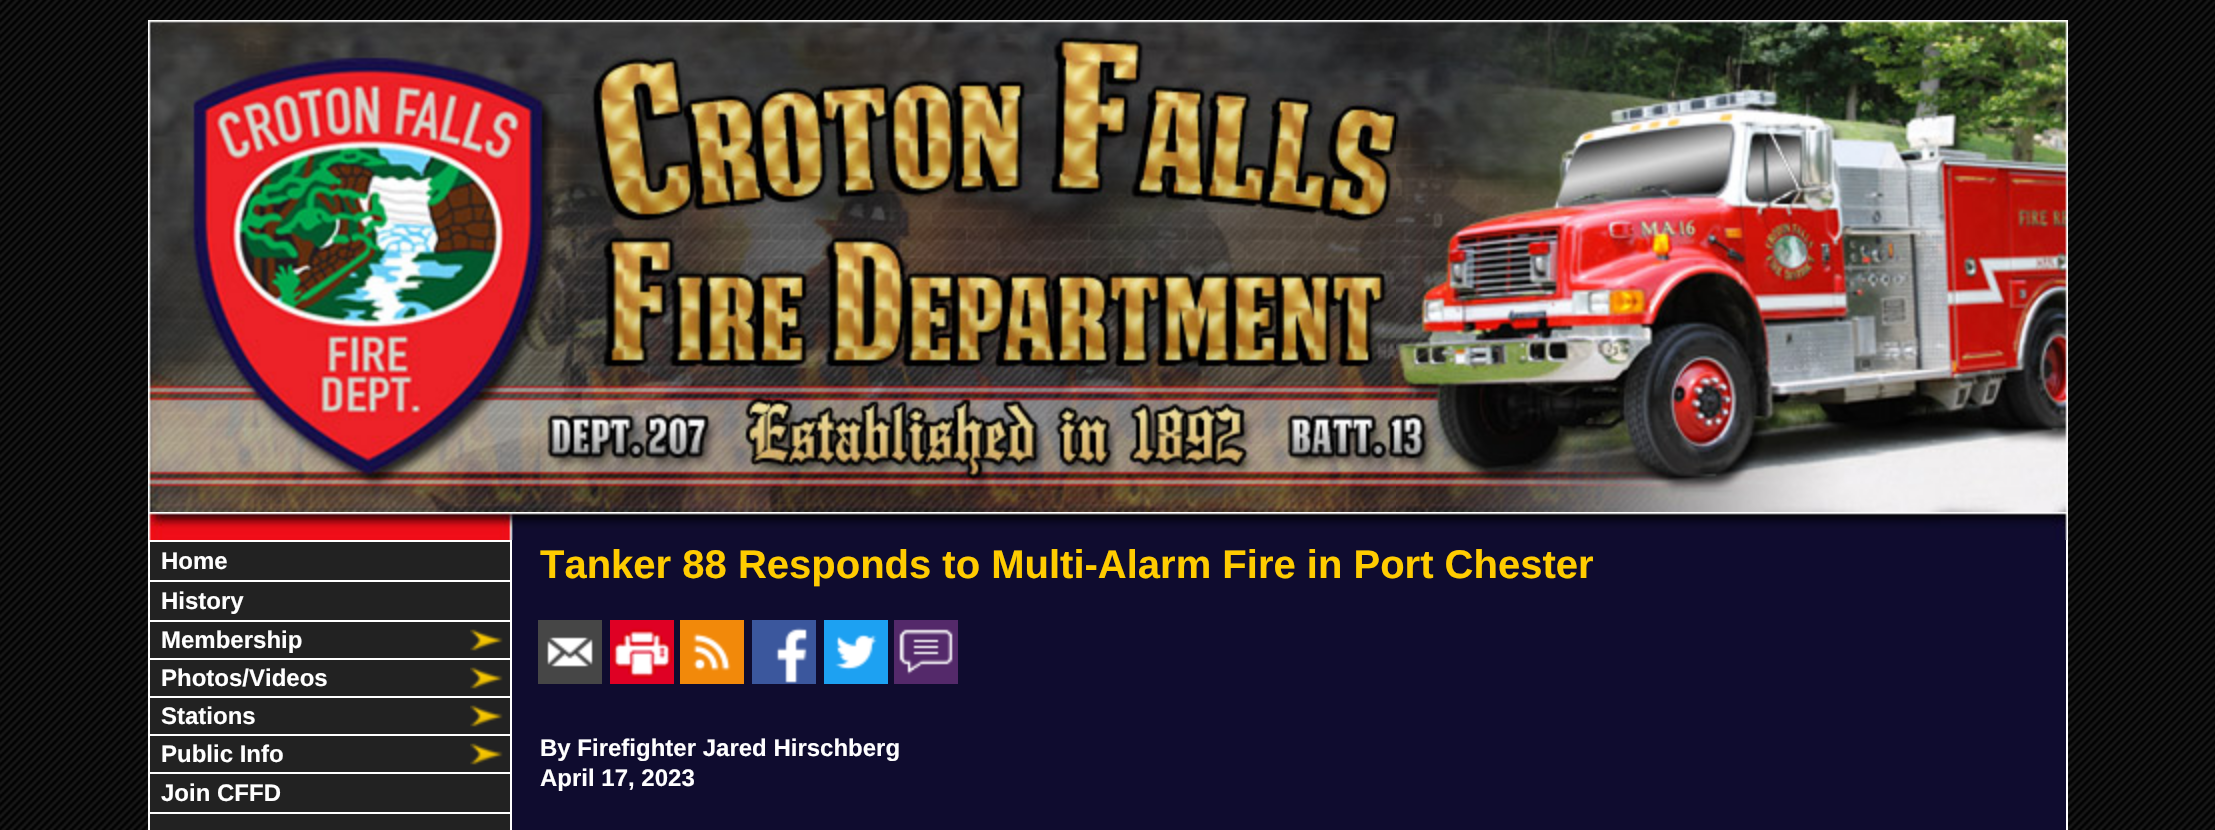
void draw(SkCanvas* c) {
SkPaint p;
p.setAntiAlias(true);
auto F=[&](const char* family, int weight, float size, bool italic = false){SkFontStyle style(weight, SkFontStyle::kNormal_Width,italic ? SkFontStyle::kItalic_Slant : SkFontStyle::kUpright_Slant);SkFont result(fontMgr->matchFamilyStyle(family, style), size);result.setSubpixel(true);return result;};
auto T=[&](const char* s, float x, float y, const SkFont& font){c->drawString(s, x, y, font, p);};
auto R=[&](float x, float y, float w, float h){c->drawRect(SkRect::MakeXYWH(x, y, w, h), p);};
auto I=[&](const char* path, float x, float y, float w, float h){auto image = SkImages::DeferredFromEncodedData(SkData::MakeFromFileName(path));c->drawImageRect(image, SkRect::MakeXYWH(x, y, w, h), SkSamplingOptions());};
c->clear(0xffffffff);
I("1.png",0,0,2215,830);
I("2.png",148,20,1248,492);
I("3.png",1396,20,672,492);
I("4.png",148,512,1920,28);
p.setColor(0xffffffff);
R(148,540,2,290);
R(150,540,360,2);
p.setColor(0xff222222);
R(150,542,360,288);
auto f1 = F("Liberation Sans",700,24);
p.setColor(0xffffffff);
T("Home",161,569,f1);
R(150,580,360,2);
T("History",161,609,f1);
R(150,620,360,2);
T("Membership",161,648,f1);
I("5.png",470,629,33,22);
R(150,658,360,2);
T("Photos/Videos",161,686,f1);
I("5.png",470,667,33,22);
R(150,696,360,2);
T("Stations",161,724,f1);
I("5.png",470,705,33,22);
R(150,734,360,2);
T("Public Info",161,762,f1);
I("5.png",470,743,33,22);
R(150,772,360,2);
T("Join CFFD",161,801,f1);
R(150,812,360,2);
R(510,540,2,290);
p.setColor(0xff0f0c2f);
R(512,540,1554,290);
auto f2 = F("Liberation Sans",700,40);
p.setColor(0xffffcc00);
T("Tanker 88 Responds to Multi-Alarm Fire in Port Chester",540,578,f2);
I("6.png",538,620,64,64);
I("7.png",610,620,64,64);
I("8.png",680,620,64,64);
I("9.png",752,620,64,64);
I("10.png",824,620,64,64);
I("11.png",894,620,64,64);
p.setColor(0xffffffff);
T("By Firefighter Jared Hirschberg",540,756,f1);
T("April 17, 2023",540,786,f1);
R(2066,540,2,290);
}
